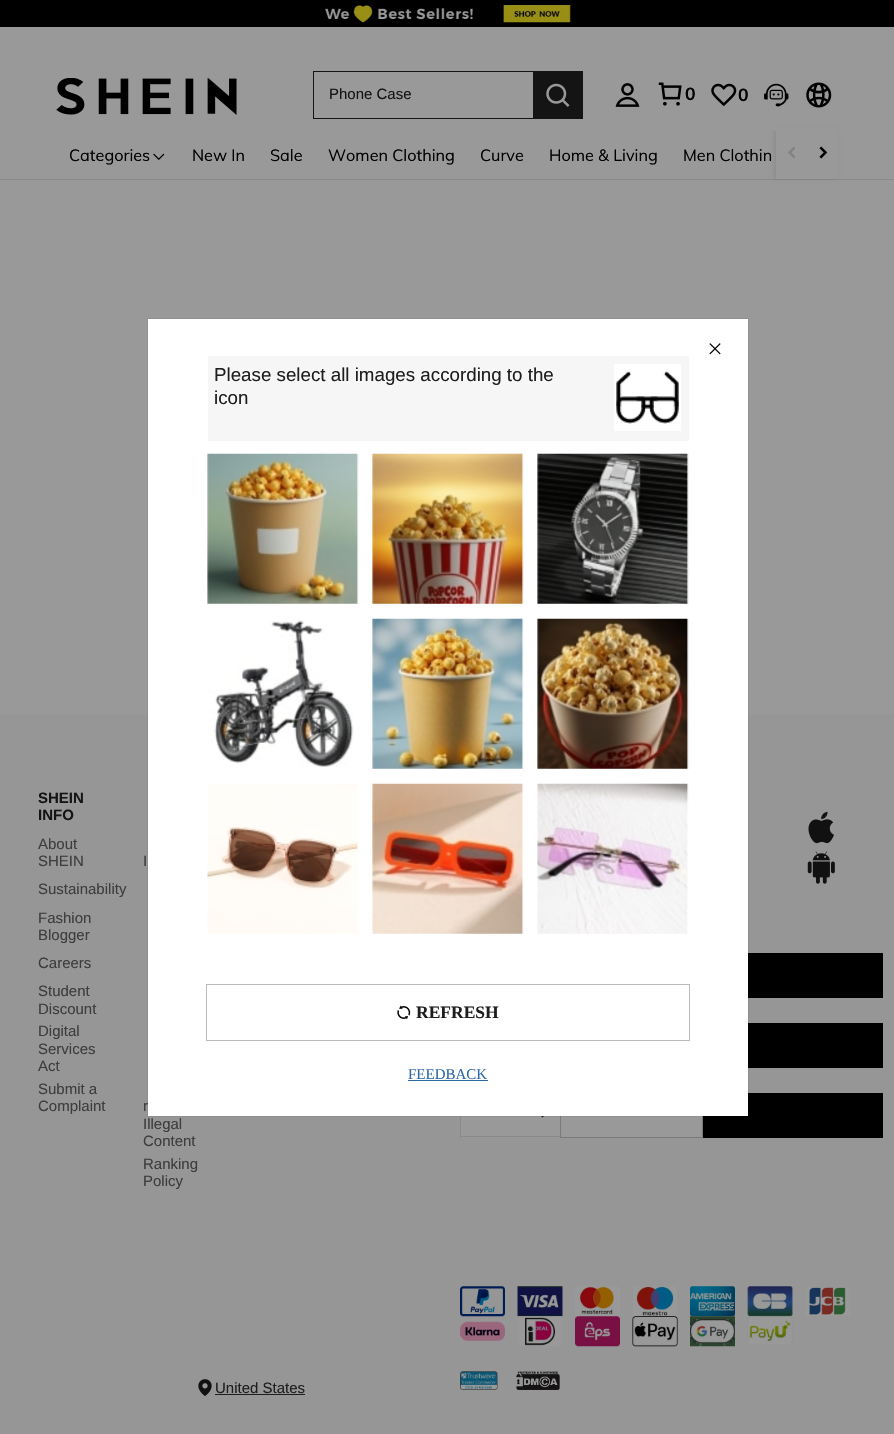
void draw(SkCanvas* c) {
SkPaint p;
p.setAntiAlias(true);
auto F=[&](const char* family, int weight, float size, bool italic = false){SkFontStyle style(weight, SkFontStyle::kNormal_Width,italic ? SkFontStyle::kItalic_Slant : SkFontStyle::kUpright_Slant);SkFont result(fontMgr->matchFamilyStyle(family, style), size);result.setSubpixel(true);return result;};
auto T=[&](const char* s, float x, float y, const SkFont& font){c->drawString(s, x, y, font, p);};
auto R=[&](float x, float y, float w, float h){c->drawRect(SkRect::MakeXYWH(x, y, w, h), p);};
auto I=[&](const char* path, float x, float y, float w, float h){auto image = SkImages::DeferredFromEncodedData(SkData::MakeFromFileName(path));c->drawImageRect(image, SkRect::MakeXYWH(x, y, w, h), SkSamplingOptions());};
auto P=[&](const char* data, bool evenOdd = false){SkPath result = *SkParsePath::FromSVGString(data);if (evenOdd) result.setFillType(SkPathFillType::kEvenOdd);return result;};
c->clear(0xff999999);
I("1.png",0,0,894,27);
p.setColor(0xff898989);
R(0,179,894,1);
p.setColor(0x14000000);
p.setMaskFilter(SkMaskFilter::MakeBlur(kNormal_SkBlurStyle, 2));
c->drawRect(SkRect::MakeXYWH(774,130,62,49),p);
p.setMaskFilter(nullptr);
p.setColor(0xff999999);
R(774,128,62,2);
I("2.png",56,78,181,37);
p.setColor(0xff141414);
R(313,71,220,1);
R(313,118,220,1);
R(313,71,1,48);
auto f1 = F("Liberation Sans",400,15);
T("Phone Case",329,99,f1);
R(533,71,50,48);
I("3.png",546,83,24,24);
I("4.png",615,83,25,24);
I("5.png",658,82,24,24);
auto f2 = F("Muli",700,17.5);
p.setColor(0xff000000);
T("0",685,100,f2);
I("6.png",711,83,26,24);
T("0",738,101,f2);
I("7.png",764,83,25,24);
I("8.png",806,82,26,26);
auto f3 = F("Muli",400,16.25);
T("Categories",69,161,f3);
I("9.png",153,153,12,7);
T("New In",192,161,f3);
T("Sale",270,161,f3);
T("Women Clothing",328,161,f3);
T("Curve",480,161,f3);
T("Home & Living",549,161,f3);
T("Men Clothin",683,161,f3);
p.setColor(0xff999999);
R(776,130,62,49);
I("10.png",788,146,8,13);
I("11.png",819,146,9,13);
p.setColor(0xff969696);
R(0,715,894,719);
auto f4 = F("Liberation Sans",700,15);
p.setColor(0xff141414);
T("SHEIN",38,803,f4);
T("INFO",38,820,f4);
p.setColor(0xff3d3d3d);
T("About",38,849,f1);
T("SHEIN",38,866,f1);
T("Sustainability",38,894,f1);
T("Fashion",38,923,f1);
T("Blogger",38,940,f1);
T("Careers",38,968,f1);
T("Student",38,996,f1);
T("Discount",38,1014,f1);
T("Digital",38,1036,f1);
T("Services",38,1054,f1);
T("Act",38,1071,f1);
T("Submit a",38,1094,f1);
T("Complaint",38,1111,f1);
T("I",143,866,f1);
T("r",143,1111,f1);
T("Illegal",143,1129,f1);
T("Content",143,1146,f1);
T("Ranking",143,1169,f1);
T("Policy",143,1186,f1);
I("12.png",808,811,26,33);
I("13.png",807,851,28,33);
p.setColor(0xff000000);
R(748,953,135,45);
R(748,1023,135,45);
p.setColor(0xff999999);
R(461,1116,99,22);
p.setColor(0xff898989);
R(460,1136,100,1);
R(460,1116,1,22);
p.setColor(0xff141414);
c->drawPath(P("M537.5 1112.5h10l-5 5z"),p);
p.setColor(0xff999999);
R(561,1116,141,21);
p.setStroke(true);
p.setStrokeWidth(1);
p.setColor(0xff7a7a7a);
c->drawRect(SkRect::MakeXYWH(560.5,1093.5,142,44),p);
p.setStroke(false);
p.setColor(0xff000000);
R(703,1093,180,45);
I("14.png",460,1286,45,31);
I("15.png",517,1286,46,31);
I("16.png",575,1286,45,30);
I("17.png",633,1286,44,30);
I("18.png",690,1286,45,31);
I("19.png",747,1286,46,31);
I("20.png",805,1287,45,29);
I("21.png",460,1321,45,20);
I("22.png",517,1316,46,30);
I("23.png",575,1316,45,31);
I("24.png",632,1316,46,31);
I("25.png",690,1316,45,31);
I("26.png",747,1316,46,30);
I("27.png",198,1379,14,17);
p.setColor(0xff1e1e1e);
T("United States",215,1393,f1);
R(215,1394,90,1);
I("28.png",460,1371,38,19);
I("29.png",516,1371,44,19);
p.setColor(0x4d000000);
p.setMaskFilter(SkMaskFilter::MakeBlur(kNormal_SkBlurStyle, .5));
c->drawRect(SkRect::MakeXYWH(148,319,600,797),p);
p.setMaskFilter(nullptr);
p.setColor(0xffffffff);
R(148,319,600,797);
I("30.png",709,343,12,12);
p.setColor(0xfff6f6f6);
R(208,356,481,85);
auto f5 = F("Liberation Sans",400,18.75);
p.setColor(0xff1e1e1e);
T("Please select all images according to the",214,381,f5);
T("icon",214,404,f5);
p.setColor(0xffffffff);
R(614,364,67,67);
I("31.png",616,371,63,53);
I("32.png",207,453,152,151);
I("33.png",372,453,152,151);
I("34.png",537,453,152,151);
I("35.png",208,619,146,148);
I("36.png",372,618,152,151);
I("37.png",537,618,152,151);
I("38.png",207,784,151,150);
I("39.png",372,783,152,151);
I("40.png",537,783,152,151);
p.setStroke(true);
p.setColor(0xffbbbbbb);
c->drawRect(SkRect::MakeXYWH(206.5,984.5,483,56),p);
I("41.png",397,1005,14,14);
auto f6 = F("Liberation Serif",700,17.5);
p.setStroke(false);
p.setColor(0xff1e1e1e);
T("REFRESH",416,1018,f6);
auto f7 = F("Liberation Serif",400,15);
p.setColor(0xff2d68a8);
T("FEEDBACK",408,1079,f7);
R(408,1080,80,1);
}
